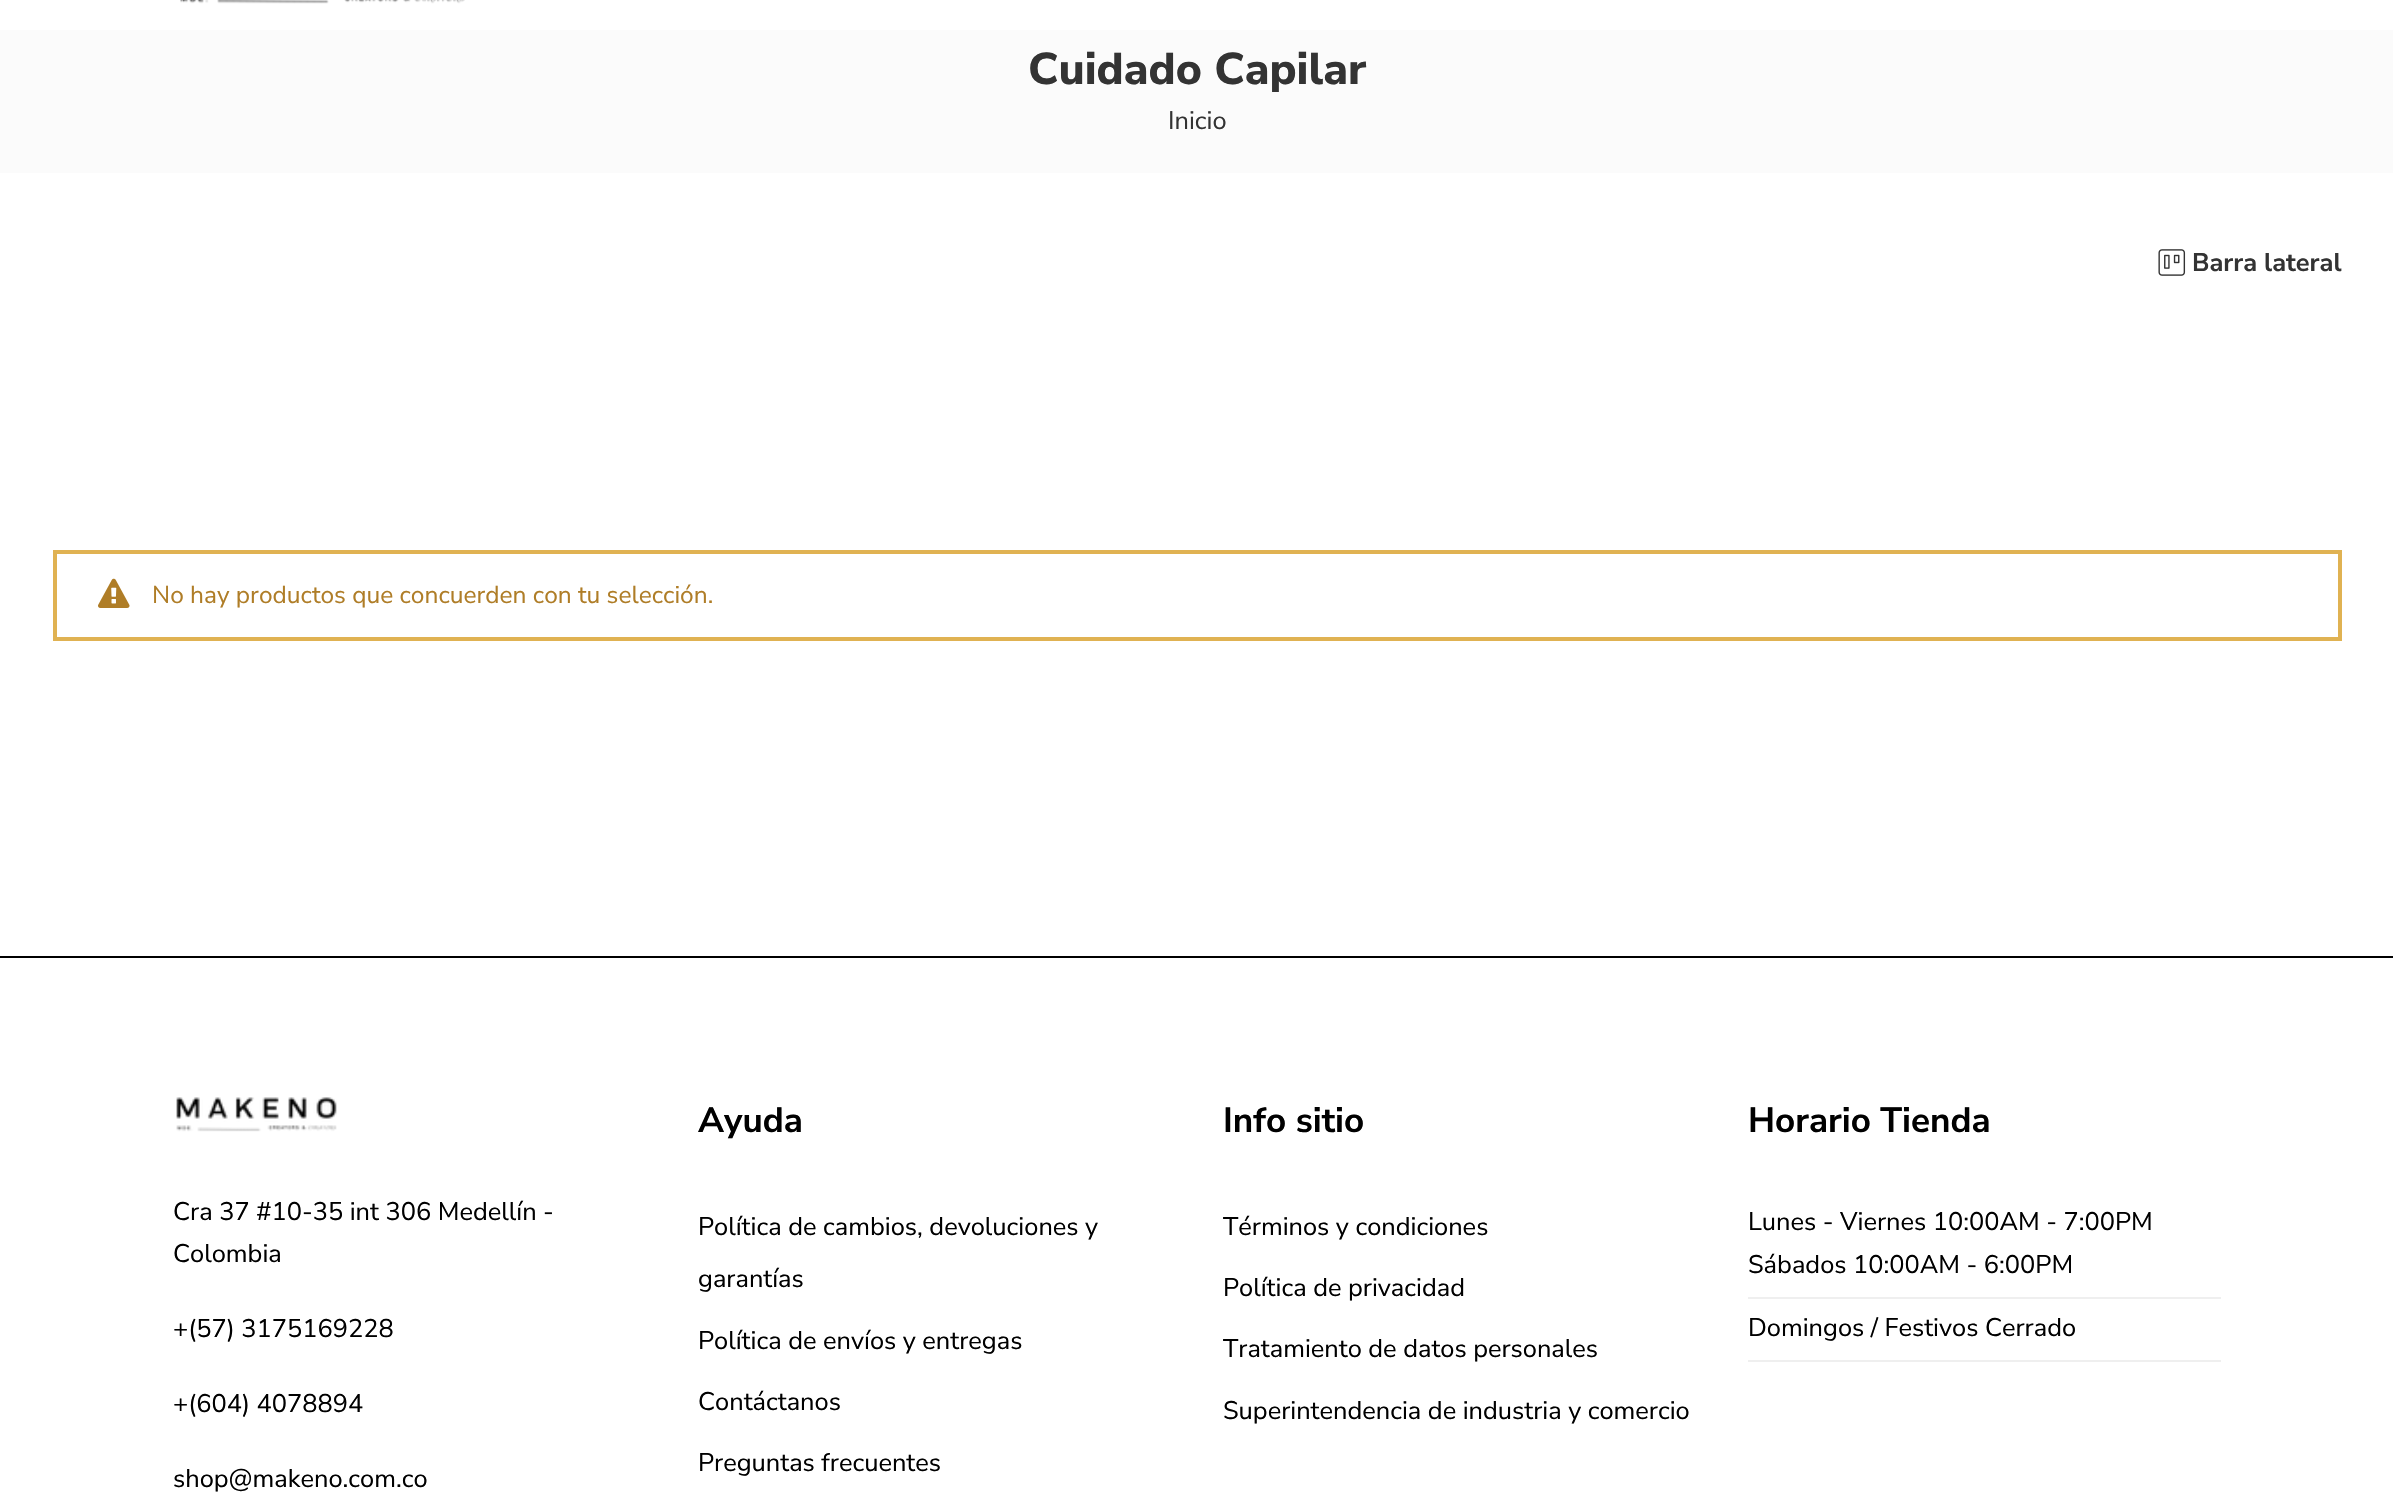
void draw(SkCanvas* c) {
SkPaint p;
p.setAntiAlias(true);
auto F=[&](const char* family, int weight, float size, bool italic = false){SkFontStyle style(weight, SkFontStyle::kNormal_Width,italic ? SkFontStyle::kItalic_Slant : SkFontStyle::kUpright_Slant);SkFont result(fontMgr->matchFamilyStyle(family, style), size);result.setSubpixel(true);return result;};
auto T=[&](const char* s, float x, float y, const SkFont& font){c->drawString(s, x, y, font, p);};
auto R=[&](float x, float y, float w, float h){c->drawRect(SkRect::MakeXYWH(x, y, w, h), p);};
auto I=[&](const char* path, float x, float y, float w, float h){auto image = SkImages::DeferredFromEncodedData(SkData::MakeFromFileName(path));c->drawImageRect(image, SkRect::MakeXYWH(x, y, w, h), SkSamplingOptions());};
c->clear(0xffffffff);
I("1.png",180,0,285,4);
p.setColor(0xfffbfbfb);
R(0,30,2393,143);
auto f1 = F("Nunito Sans",800,44.5);
p.setColor(0xff333333);
T("Cuidado Capilar",1028,84,f1);
auto f2 = F("Nunito Sans",400,25.4);
T("Inicio",1168,129,f2);
I("2.png",2158,249,28,27);
auto f3 = F("Nunito Sans",700,25.4);
T("Barra lateral",2192,271,f3);
p.setStroke(true);
p.setStrokeWidth(4);
p.setColor(0xffe0b252);
c->drawRect(SkRect::MakeXYWH(55,552,2285,87),p);
I("3.png",98,578,32,30);
auto f4 = F("Nunito Sans",400,24.5);
p.setStroke(false);
p.setColor(0xffaf7d27);
T("No hay productos que concuerden con tu selección.",152,603,f4);
p.setColor(0xff000000);
R(0,956,2393,2);
I("4.png",176,1097,161,35);
T("Cra 37 #10-35 int 306 Medellín -",173,1220,f2);
T("Colombia",173,1262,f2);
T("+(57) 3175169228",173,1337,f2);
T("+(604) 4078894",173,1412,f2);
T("shop@makeno.com.co",173,1487,f2);
auto f5 = F("Nunito Sans",700,35);
T("Ayuda",698,1132,f5);
T("Política de cambios, devoluciones y",698,1235,f2);
T("garantías",698,1287,f2);
T("Política de envíos y entregas",698,1349,f2);
T("Contáctanos",698,1410,f2);
T("Preguntas frecuentes",698,1471,f2);
T("Info sitio",1223,1132,f5);
T("Términos y condiciones",1223,1235,f2);
T("Política de privacidad",1223,1296,f2);
T("Tratamiento de datos personales",1223,1357,f2);
T("Superintendencia de industria y comercio",1223,1419,f2);
T("Horario Tienda",1748,1132,f5);
p.setColor(0xffefefef);
R(1748,1297,473,2);
p.setColor(0xff000000);
T("Lunes - Viernes 10:00AM - 7:00PM",1748,1230,f2);
T("Sábados 10:00AM - 6:00PM",1748,1273,f2);
p.setColor(0xffefefef);
R(1748,1360,473,2);
p.setColor(0xff000000);
T("Domingos / Festivos Cerrado",1748,1336,f2);
}
